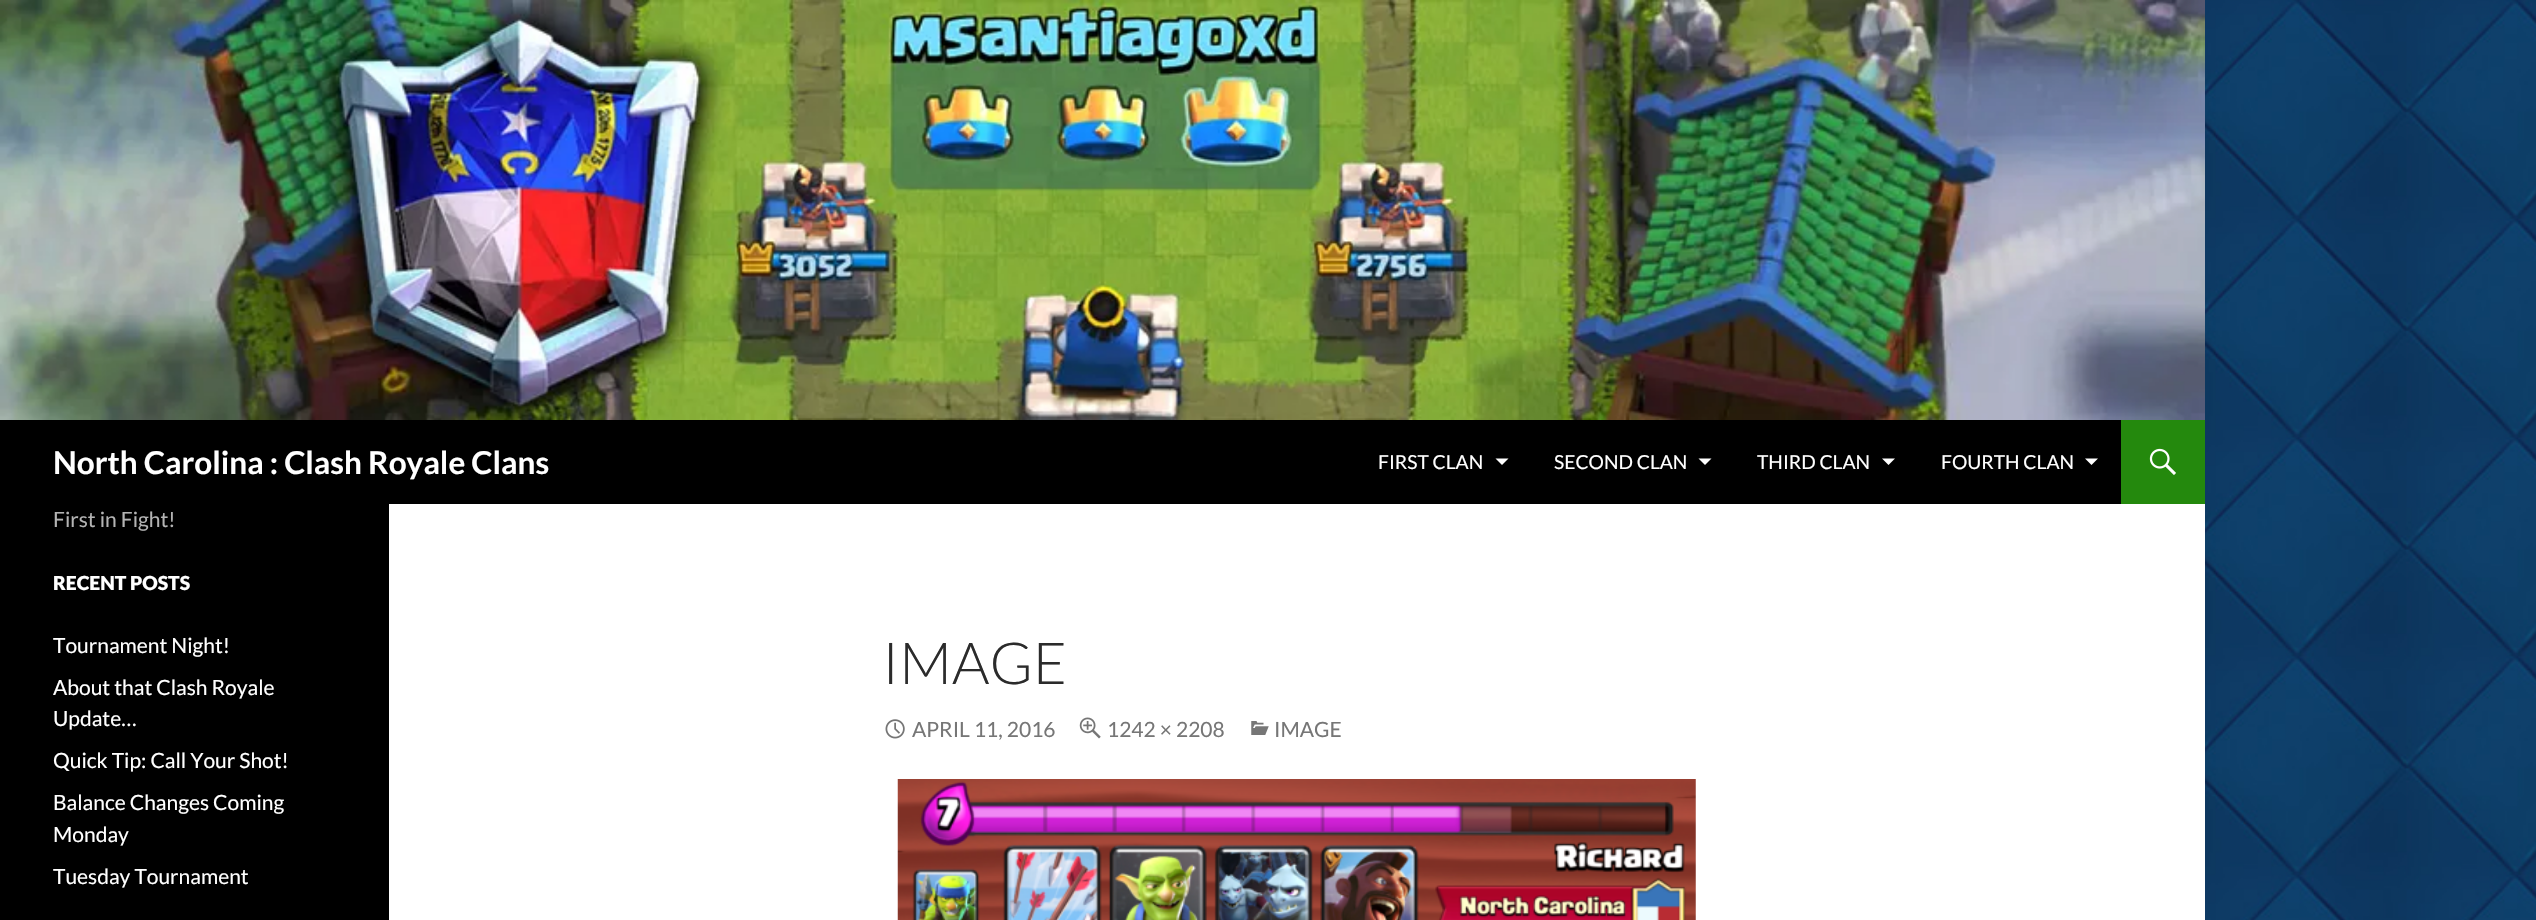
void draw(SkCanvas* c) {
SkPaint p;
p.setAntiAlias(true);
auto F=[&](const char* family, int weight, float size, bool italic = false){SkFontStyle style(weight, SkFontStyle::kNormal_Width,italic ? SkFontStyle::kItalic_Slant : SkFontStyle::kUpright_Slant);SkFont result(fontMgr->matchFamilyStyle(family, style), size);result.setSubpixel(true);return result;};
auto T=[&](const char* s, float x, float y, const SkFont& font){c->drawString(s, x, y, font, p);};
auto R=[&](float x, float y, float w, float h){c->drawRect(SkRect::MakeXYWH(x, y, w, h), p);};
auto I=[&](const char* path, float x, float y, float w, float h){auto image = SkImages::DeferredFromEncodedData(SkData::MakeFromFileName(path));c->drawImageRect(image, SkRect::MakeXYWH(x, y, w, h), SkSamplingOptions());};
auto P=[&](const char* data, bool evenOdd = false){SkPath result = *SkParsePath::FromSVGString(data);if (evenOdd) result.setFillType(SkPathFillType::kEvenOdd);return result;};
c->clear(0xffffffff);
I("1.png",2205,0,331,920);
I("2.png",0,0,2205,420);
p.setColor(0xff000000);
R(0,420,2121,84);
auto f1 = F("Lato",700,31.5);
p.setColor(0xffffffff);
T("North Carolina : Clash Royale Clans",53,474,f1);
auto f2 = F("Lato",400,19.25);
T("FIRST CLAN",1378,469,f2);
c->drawPath(P("M1495.5 458.5h13l-6.5 6.5z"),p);
T("SECOND CLAN",1554,469,f2);
c->drawPath(P("M1698.5 458.5h13l-6.5 6.5z"),p);
T("THIRD CLAN",1757,469,f2);
c->drawPath(P("M1882 458.5h13l-6.5 6.5z"),p);
T("FOURTH CLAN",1941,469,f2);
c->drawPath(P("M2085 458.5h13l-6.5 6.5z"),p);
p.setColor(0xff24890d);
R(2121,420,84,84);
I("3.png",2149,448,27,27);
p.setColor(0xff000000);
R(0,504,389,416);
auto f3 = F("Lato",400,21);
p.setColor(0xffb3b3b3);
T("First in Fight!",53,527,f3);
auto f4 = F("Lato",900,19.25);
p.setColor(0xffffffff);
T("RECENT POSTS",53,590,f4);
T("Tournament Night!",53,653,f3);
T("About that Clash Royale",53,695,f3);
T("Update…",53,726,f3);
T("Quick Tip: Call Your Shot!",53,768,f3);
T("Balance Changes Coming",53,810,f3);
T("Monday",53,842,f3);
T("Tuesday Tournament",53,884,f3);
auto f5 = F("Lato",300,58);
p.setColor(0xff2b2b2b);
T("IMAGE",882,684,f5);
I("4.png",885,719,20,20);
p.setColor(0xff767676);
T("APRIL 11, 2016",912,737,f3);
I("5.png",1079,717,22,22);
T("1242 × 2208",1107,737,f3);
I("6.png",1251,721,18,14);
T("IMAGE",1274,737,f3);
I("7.png",897,779,799,141);
}
